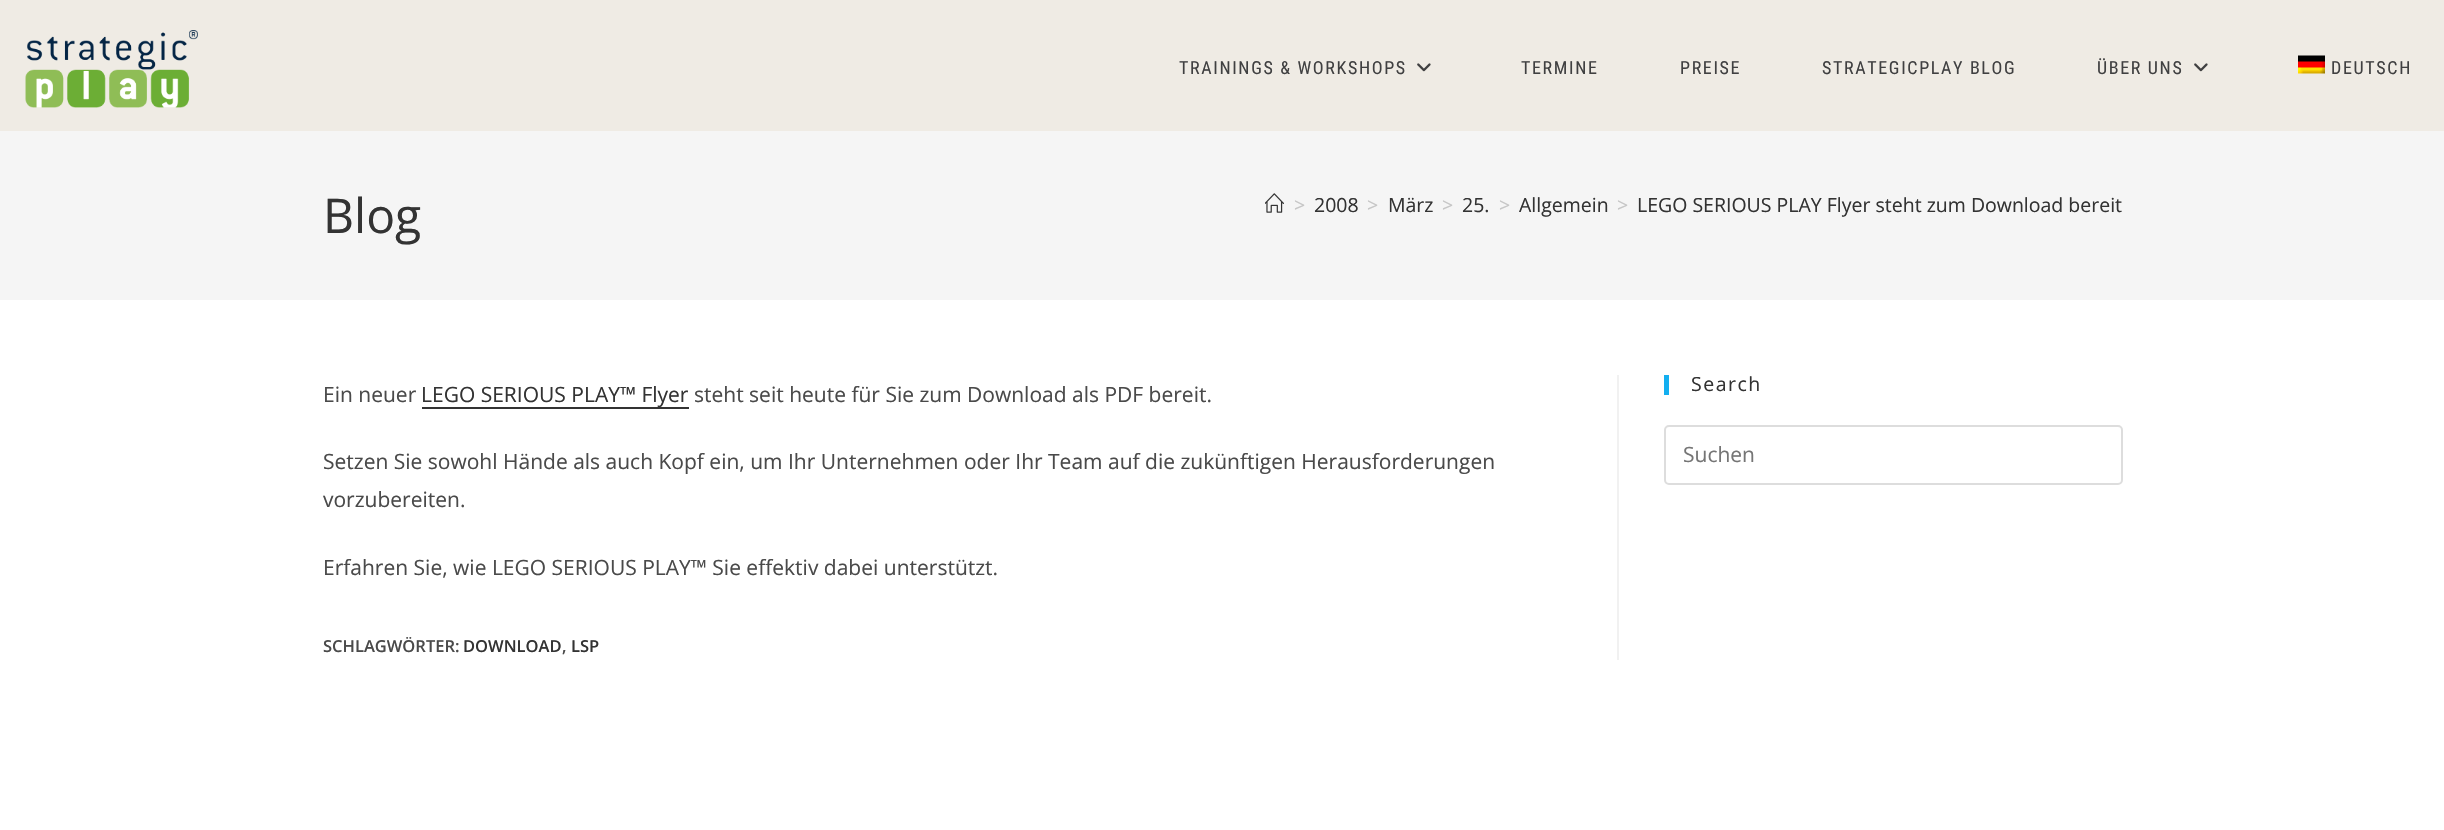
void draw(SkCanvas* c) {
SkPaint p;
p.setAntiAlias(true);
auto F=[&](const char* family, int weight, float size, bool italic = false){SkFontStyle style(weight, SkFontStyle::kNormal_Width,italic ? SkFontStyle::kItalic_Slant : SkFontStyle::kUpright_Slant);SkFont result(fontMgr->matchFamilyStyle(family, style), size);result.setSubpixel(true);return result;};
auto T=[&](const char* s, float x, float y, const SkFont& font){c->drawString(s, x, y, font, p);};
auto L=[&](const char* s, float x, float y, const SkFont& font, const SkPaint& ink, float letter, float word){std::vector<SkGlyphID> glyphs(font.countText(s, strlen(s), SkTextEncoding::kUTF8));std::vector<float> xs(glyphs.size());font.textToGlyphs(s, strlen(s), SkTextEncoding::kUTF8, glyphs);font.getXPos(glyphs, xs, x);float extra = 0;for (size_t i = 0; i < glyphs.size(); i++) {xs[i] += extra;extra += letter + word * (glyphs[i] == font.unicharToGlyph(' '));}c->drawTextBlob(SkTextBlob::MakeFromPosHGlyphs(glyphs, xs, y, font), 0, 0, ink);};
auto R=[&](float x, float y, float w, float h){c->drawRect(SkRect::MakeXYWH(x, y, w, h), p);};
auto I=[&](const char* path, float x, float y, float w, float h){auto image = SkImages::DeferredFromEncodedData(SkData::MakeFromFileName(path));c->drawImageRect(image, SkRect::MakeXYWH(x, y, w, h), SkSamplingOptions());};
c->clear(0xffffffff);
p.setColor(0xffefebe4);
R(0,0,2444,131);
I("1.png",25,30,173,78);
auto f1 = F("Roboto Condensed",400,18);
p.setColor(0xff404041);
L("TRAININGS & WORKSHOPS",1179,74,f1,p,1.65,0);
I("2.png",1417,63,14,9);
L("TERMINE",1521,74,f1,p,1.65,0);
L("PREISE",1680,74,f1,p,1.65,0);
L("STRATEGICPLAY BLOG",1822,74,f1,p,1.65,0);
L("ÜBER UNS",2097,74,f1,p,1.65,0);
I("2.png",2194,63,14,9);
I("3.png",2298,55,27,19);
L("DEUTSCH",2331,74,f1,p,1.65,0);
p.setColor(0xfff5f5f5);
R(0,131,2444,169);
auto f2 = F("Open Sans",400,48);
p.setColor(0xff333333);
T("Blog",323,233,f2);
I("4.png",1265,193,19,20);
auto f3 = F("Open Sans",400,19.5);
p.setColor(0xffc6c6c6);
T(">",1294,212,f3);
p.setColor(0xff333333);
T("2008",1314,212,f3);
p.setColor(0xffc6c6c6);
T(">",1367,212,f3);
p.setColor(0xff333333);
T("März",1388,212,f3);
p.setColor(0xffc6c6c6);
T(">",1442,212,f3);
p.setColor(0xff333333);
T("25.",1462,212,f3);
p.setColor(0xffc6c6c6);
T(">",1499,212,f3);
p.setColor(0xff333333);
T("Allgemein",1519,212,f3);
p.setColor(0xffc6c6c6);
T(">",1617,212,f3);
p.setColor(0xff333333);
T("LEGO SERIOUS PLAY Flyer steht zum Download bereit",1637,212,f3);
p.setColor(0xfff1f1f1);
R(1617,375,2,285);
auto f4 = F("Open Sans",400,21);
p.setColor(0xff4a4a4a);
T("Ein neuer",323,402,f4);
p.setColor(0xff333333);
R(422,407,267,2);
T("LEGO SERIOUS PLAY™ Flyer",421,402,f4);
p.setColor(0xff4a4a4a);
T("steht seit heute für Sie zum Download als PDF bereit.",694,402,f4);
T("Setzen Sie sowohl Hände als auch Kopf ein, um Ihr Unternehmen oder Ihr Team auf die zukünftigen Herausforderungen",323,469,f4);
T("vorzubereiten.",323,507,f4);
T("Erfahren Sie, wie LEGO SERIOUS PLAY™ Sie effektiv dabei unterstützt.",323,575,f4);
auto f5 = F("Open Sans",600,16.5);
T("SCHLAGWÖRTER:",323,652,f5);
p.setColor(0xff333333);
T("DOWNLOAD",463,652,f5);
p.setColor(0xff4a4a4a);
T(",",562,652,f5);
p.setColor(0xff333333);
T("LSP",571,652,f5);
p.setColor(0xff13aff0);
R(1664,375,5,20);
p.setColor(0xff333333);
L("Search",1691,391,f3,p,1.5,0);
p.setStroke(true);
p.setStrokeWidth(2);
p.setColor(0xffdddddd);
c->drawRoundRect(SkRect::MakeXYWH(1665,426,457,58),4,4,p);
p.setStroke(false);
p.setColor(0xff757575);
T("Suchen",1683,462,f4);
}
